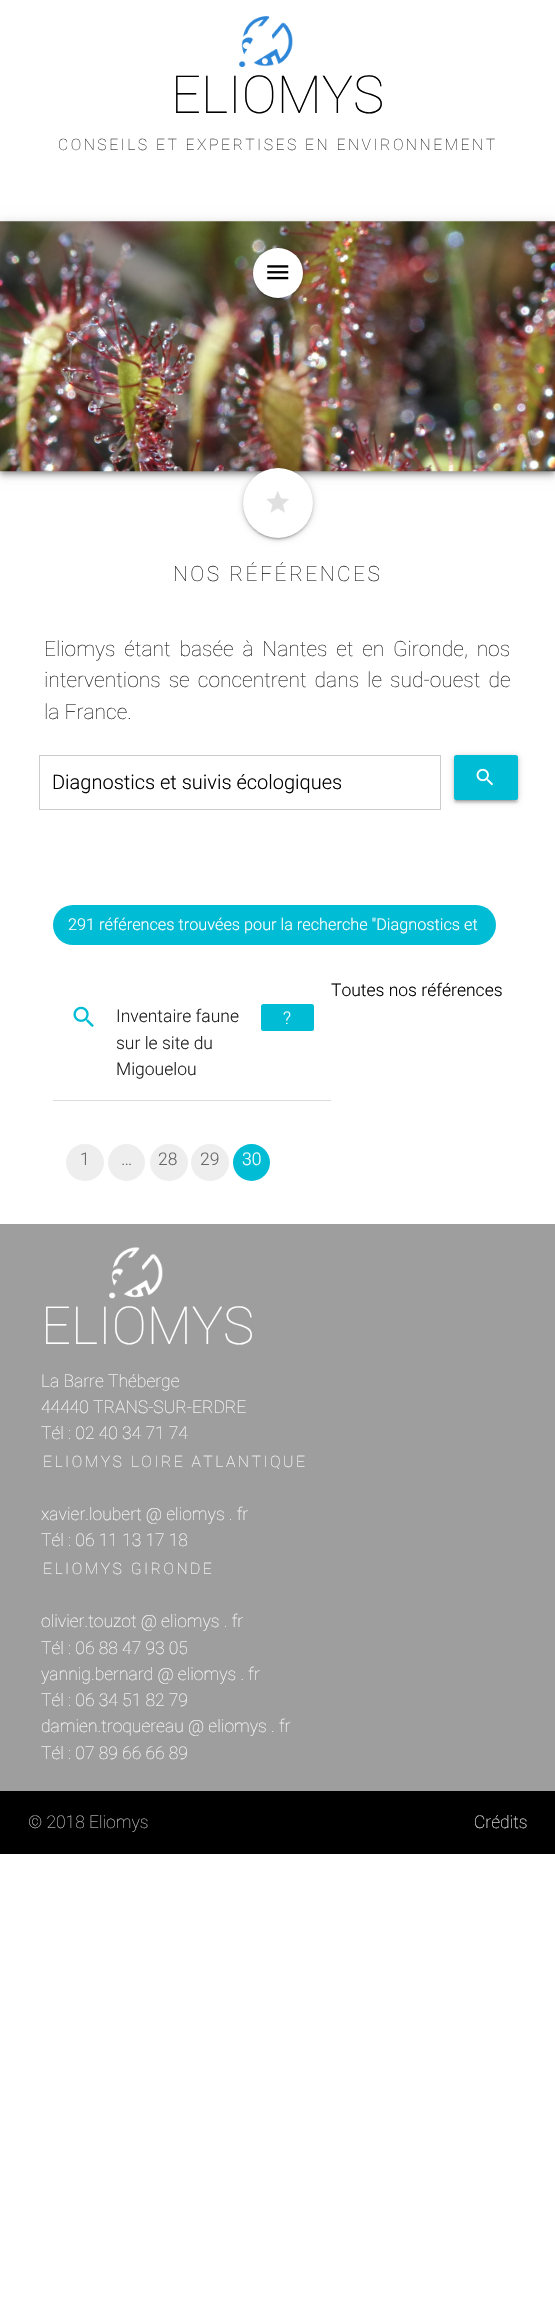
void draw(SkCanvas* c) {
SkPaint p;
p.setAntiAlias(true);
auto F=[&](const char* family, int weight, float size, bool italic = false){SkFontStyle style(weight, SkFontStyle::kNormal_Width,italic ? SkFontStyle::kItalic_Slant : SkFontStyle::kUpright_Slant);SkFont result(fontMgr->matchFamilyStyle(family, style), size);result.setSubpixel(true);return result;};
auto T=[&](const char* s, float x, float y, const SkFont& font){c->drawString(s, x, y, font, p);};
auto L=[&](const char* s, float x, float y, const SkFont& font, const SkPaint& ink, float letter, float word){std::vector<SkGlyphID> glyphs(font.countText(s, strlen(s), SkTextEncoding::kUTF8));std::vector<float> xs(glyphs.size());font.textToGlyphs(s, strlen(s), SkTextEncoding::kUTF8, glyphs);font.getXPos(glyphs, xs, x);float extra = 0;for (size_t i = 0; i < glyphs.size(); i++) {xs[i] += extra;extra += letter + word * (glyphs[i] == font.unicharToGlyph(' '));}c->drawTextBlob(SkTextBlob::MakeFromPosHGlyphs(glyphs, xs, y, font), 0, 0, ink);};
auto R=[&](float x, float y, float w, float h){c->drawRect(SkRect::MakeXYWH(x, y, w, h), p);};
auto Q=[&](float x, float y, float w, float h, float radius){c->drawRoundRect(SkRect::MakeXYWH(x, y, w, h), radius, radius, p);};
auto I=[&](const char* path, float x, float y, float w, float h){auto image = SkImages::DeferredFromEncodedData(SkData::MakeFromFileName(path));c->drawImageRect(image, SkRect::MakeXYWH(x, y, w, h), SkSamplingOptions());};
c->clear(0xffffffff);
I("1.png",239,16,54,51);
auto f1 = F("Roboto",100,52.5);
p.setColor(0xff000000);
T("ELIOMYS",171,113,f1);
auto f2 = F("Roboto",100,15.75);
p.setColor(0xff212121);
L("CONSEILS ET EXPERTISES EN ENVIRONNEMENT",58,150,f2,p,2.5,0);
p.setColor(0x4d000000);
p.setMaskFilter(SkMaskFilter::MakeBlur(kNormal_SkBlurStyle, 2.5));
c->drawRect(SkRect::MakeXYWH(1,225,553,248),p);
p.setMaskFilter(nullptr);
p.setColor(0x1f000000);
p.setMaskFilter(SkMaskFilter::MakeBlur(kNormal_SkBlurStyle, 6));
c->drawRect(SkRect::MakeXYWH(0,223,555,250),p);
p.setMaskFilter(nullptr);
p.setColor(0x24000000);
p.setMaskFilter(SkMaskFilter::MakeBlur(kNormal_SkBlurStyle, 3));
c->drawRect(SkRect::MakeXYWH(0,226,555,250),p);
p.setMaskFilter(nullptr);
I("2.png",0,221,555,251);
p.setColor(0x33000000);
p.setMaskFilter(SkMaskFilter::MakeBlur(kNormal_SkBlurStyle, 3));
c->drawRoundRect(SkRect::MakeXYWH(253,249,50,50),25,25,p);
p.setMaskFilter(nullptr);
p.setColor(0x1f000000);
p.setMaskFilter(SkMaskFilter::MakeBlur(kNormal_SkBlurStyle, .5));
c->drawRoundRect(SkRect::MakeXYWH(255,254,45,45),22.5,22.5,p);
p.setMaskFilter(nullptr);
p.setColor(0x24000000);
p.setMaskFilter(SkMaskFilter::MakeBlur(kNormal_SkBlurStyle, 1));
c->drawRoundRect(SkRect::MakeXYWH(253,250,50,50),25,25,p);
p.setMaskFilter(nullptr);
p.setColor(0xffffffff);
c->drawCircle(278,273,25,p);
I("3.png",267,265,22,15);
p.setColor(0x33000000);
p.setMaskFilter(SkMaskFilter::MakeBlur(kNormal_SkBlurStyle, 3));
c->drawRoundRect(SkRect::MakeXYWH(243,469,70,70),35,35,p);
p.setMaskFilter(nullptr);
p.setColor(0x1f000000);
p.setMaskFilter(SkMaskFilter::MakeBlur(kNormal_SkBlurStyle, .5));
c->drawRoundRect(SkRect::MakeXYWH(245,474,65,65),32.5,32.5,p);
p.setMaskFilter(nullptr);
p.setColor(0x24000000);
p.setMaskFilter(SkMaskFilter::MakeBlur(kNormal_SkBlurStyle, 1));
c->drawRoundRect(SkRect::MakeXYWH(243,470,70,70),35,35,p);
p.setMaskFilter(nullptr);
p.setColor(0xffffffff);
c->drawCircle(278,503,35,p);
I("4.png",266,491,23,22);
auto f3 = F("Roboto",100,21);
p.setColor(0xff212121);
L("NOS RÉFÉRENCES",173,581,f3,p,2.5,0);
L("Eliomys étant basée à Nantes et en Gironde, nos",44,656,f3,p,0,3.75);
L("interventions se concentrent dans le sud-ouest de",44,687,f3,p,0,3);
T("la France.",44,719,f3);
p.setStroke(true);
p.setStrokeWidth(1);
p.setColor(0xffcccccc);
c->drawRect(SkRect::MakeXYWH(39.5,755.5,401,54),p);
auto f4 = F("Roboto",300,20);
p.setStroke(false);
p.setColor(0xff000000);
T("Diagnostics et suivis écologiques",52,789,f4);
p.setColor(0x33000000);
p.setMaskFilter(SkMaskFilter::MakeBlur(kNormal_SkBlurStyle, 3));
c->drawRoundRect(SkRect::MakeXYWH(454,756,64,45),2.5,2.5,p);
p.setMaskFilter(nullptr);
p.setColor(0x1f000000);
p.setMaskFilter(SkMaskFilter::MakeBlur(kNormal_SkBlurStyle, .5));
c->drawRect(SkRect::MakeXYWH(456,761,59,40),p);
p.setMaskFilter(nullptr);
p.setColor(0x24000000);
p.setMaskFilter(SkMaskFilter::MakeBlur(kNormal_SkBlurStyle, 1));
c->drawRoundRect(SkRect::MakeXYWH(454,758,64,45),2.5,2.5,p);
p.setMaskFilter(nullptr);
p.setColor(0xff00bcd4);
Q(454,755,64,45,2.5);
I("5.png",476,768,17,18);
Q(53,905,443,40,20);
auto f5 = F("Roboto",300,16.25);
p.setColor(0xffffffff);
T("291 références trouvées pour la recherche \"Diagnostics et",68,930,f5);
auto f6 = F("Roboto",300,17.5);
p.setColor(0xff000000);
T("Toutes nos références",331,996,f6);
p.setColor(0xffdddddd);
R(53,1100,278,1);
I("6.png",73,1006,21,21);
p.setColor(0xff212121);
T("Inventaire faune",116,1022,f6);
p.setColor(0xff00bcd4);
Q(261,1004,53,27,2.5);
p.setColor(0xffffffff);
T("?",283,1024,f6);
p.setColor(0xff212121);
T("sur le site du",116,1049,f6);
T("Migouelou",116,1075,f6);
p.setColor(0xffeeeeee);
Q(66,1144,38,37,18.5);
p.setColor(0xff666666);
T("1",80,1165,f6);
p.setColor(0xffeeeeee);
c->drawCircle(126.5,1162.5,18.5,p);
p.setColor(0xff666666);
T("…",121,1165,f6);
p.setColor(0xffeeeeee);
Q(150,1144,38,37,18.5);
p.setColor(0xff666666);
T("28",158,1165,f6);
p.setColor(0xffeeeeee);
Q(191,1144,38,37,18.5);
p.setColor(0xff666666);
T("29",200,1165,f6);
p.setColor(0xff00bcd4);
c->drawCircle(251.5,1162.5,18.5,p);
p.setColor(0xffffffff);
T("30",242,1165,f6);
p.setColor(0xff9e9e9e);
R(0,1224,555,567);
I("7.png",109,1247,54,52);
p.setColor(0xffffffff);
T("ELIOMYS",41,1344,f1);
auto f7 = F("Roboto",100,17.5);
T("La Barre Théberge",41,1387,f7);
T("44440 TRANS-SUR-ERDRE",41,1413,f7);
T("Tél : 02 40 34 71 74",41,1439,f7);
L("ELIOMYS LOIRE ATLANTIQUE",43,1467,f2,p,2.5,0);
T("xavier.loubert @ eliomys . fr",41,1520,f7);
T("Tél : 06 11 13 17 18",41,1546,f7);
L("ELIOMYS GIRONDE",43,1574,f2,p,2.5,0);
T("olivier.touzot @ eliomys . fr",41,1627,f7);
T("Tél : 06 88 47 93 05",41,1654,f7);
T("yannig.bernard @ eliomys . fr",41,1680,f7);
T("Tél : 06 34 51 82 79",41,1706,f7);
T("damien.troquereau @ eliomys . fr",41,1732,f7);
T("Tél : 07 89 66 66 89",41,1759,f7);
p.setColor(0xff000000);
R(0,1791,555,63);
p.setColor(0xffcccccc);
T("© 2018 Eliomys",28,1828,f7);
p.setColor(0xfff5f5f5);
T("Crédits",474,1828,f7);
}
